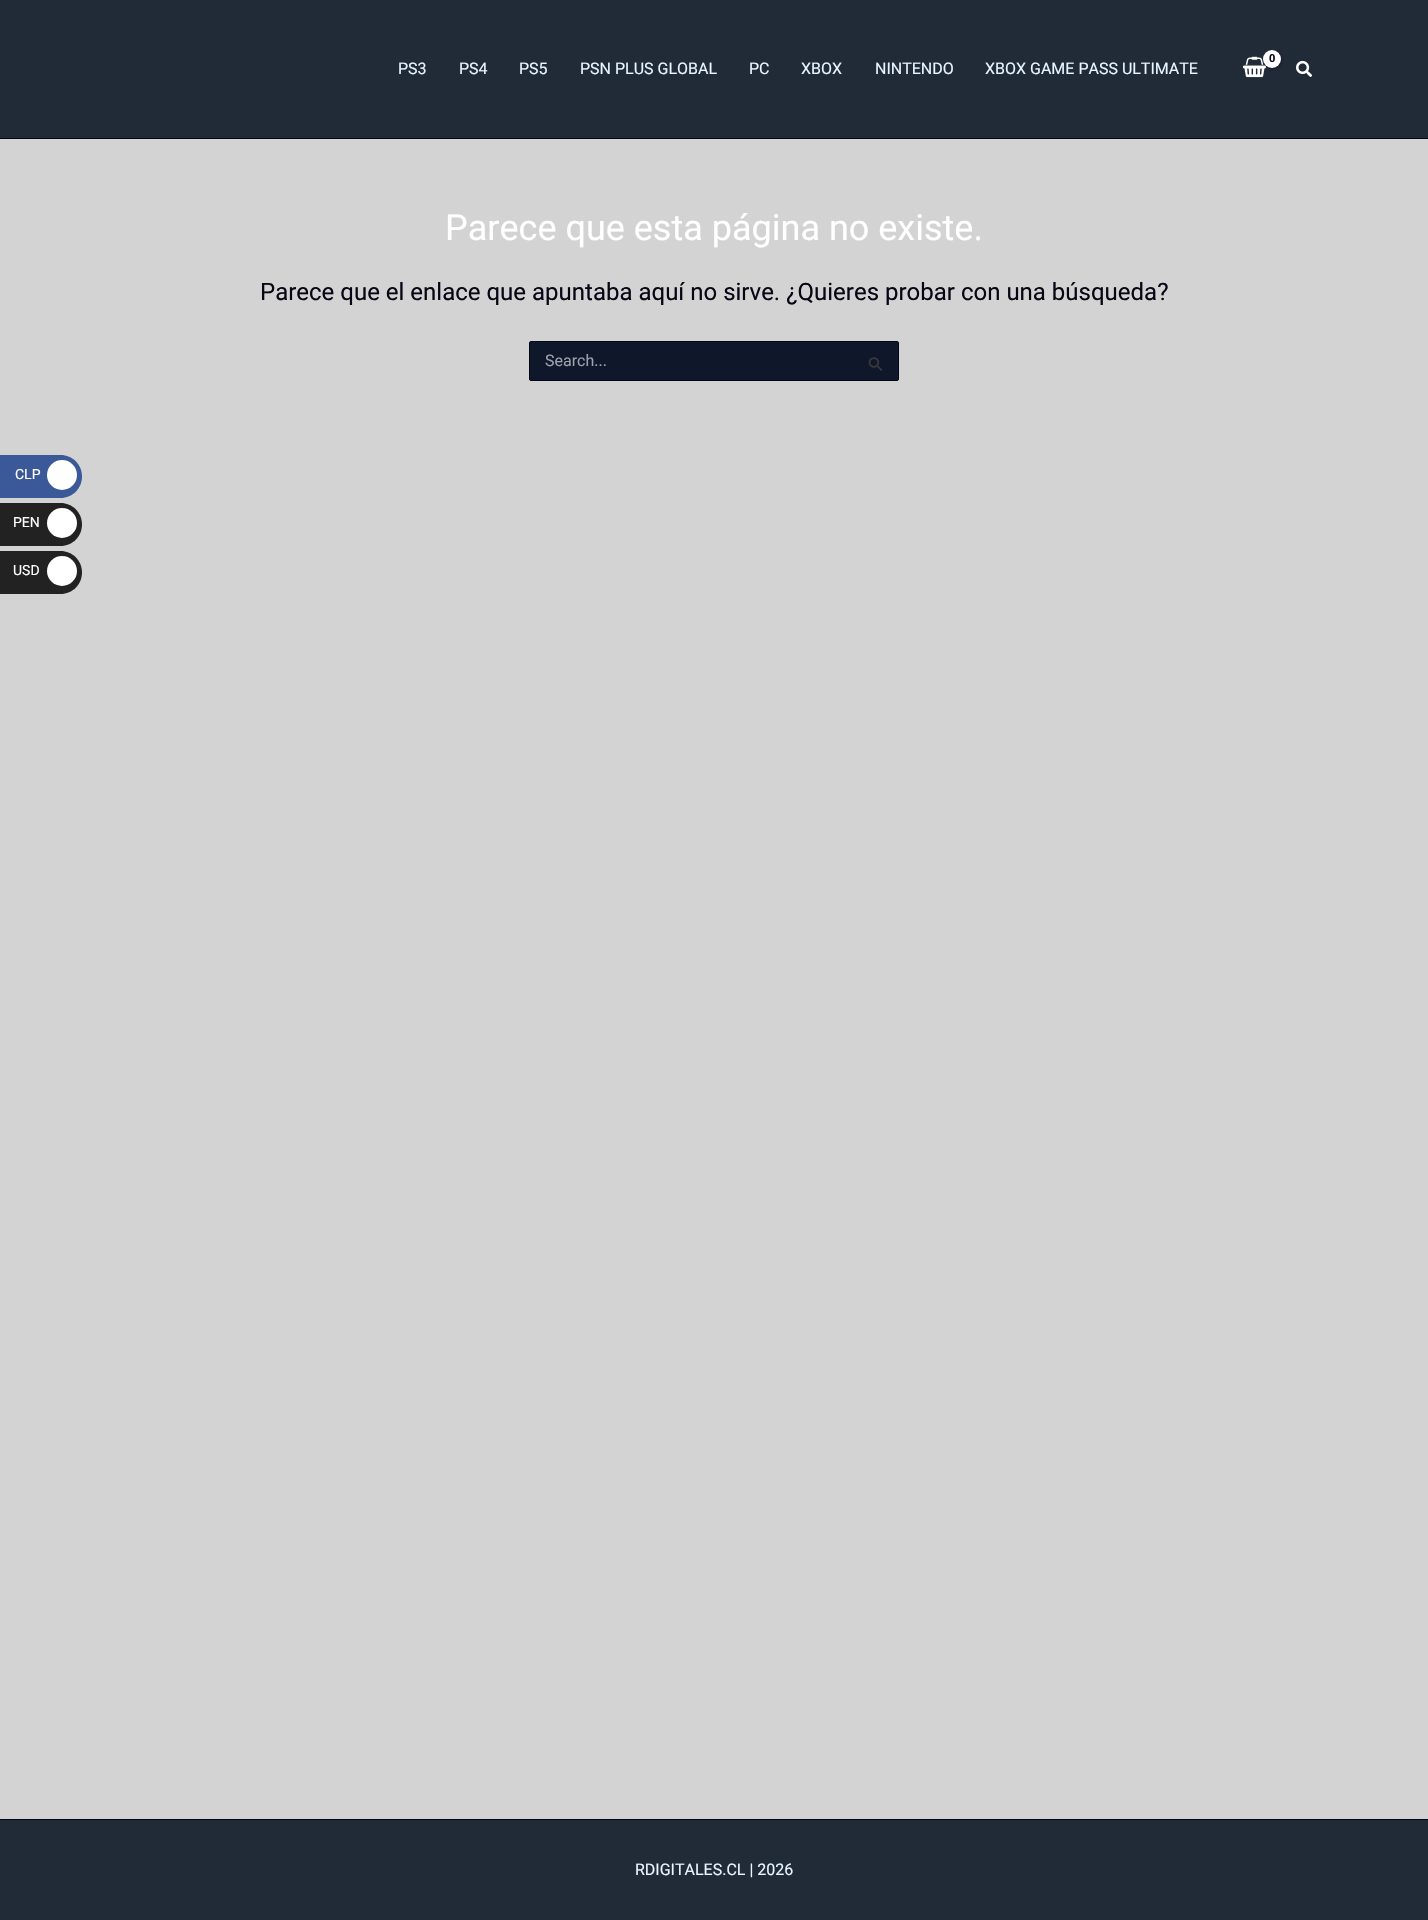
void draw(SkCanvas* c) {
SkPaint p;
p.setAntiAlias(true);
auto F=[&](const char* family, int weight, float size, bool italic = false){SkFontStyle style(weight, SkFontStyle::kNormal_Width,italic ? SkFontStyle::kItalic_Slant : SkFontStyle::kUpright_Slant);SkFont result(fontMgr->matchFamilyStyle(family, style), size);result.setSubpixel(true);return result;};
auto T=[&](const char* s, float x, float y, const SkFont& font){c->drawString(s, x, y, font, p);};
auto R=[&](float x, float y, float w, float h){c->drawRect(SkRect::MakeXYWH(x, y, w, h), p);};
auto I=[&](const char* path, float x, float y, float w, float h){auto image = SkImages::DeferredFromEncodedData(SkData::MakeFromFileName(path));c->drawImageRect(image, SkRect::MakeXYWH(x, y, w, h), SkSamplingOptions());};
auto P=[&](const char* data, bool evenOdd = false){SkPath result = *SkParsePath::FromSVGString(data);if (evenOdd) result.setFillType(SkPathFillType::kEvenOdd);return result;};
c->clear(0xffd3d3d3);
p.setColor(0xff3b5998);
c->drawPath(P("M-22 455h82.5c12 0 21.5 9.5 21.5 21.5c0 12-9.5 21.5-21.5 21.5h-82.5z"),p);
auto f1 = F("Roboto",400,14);
p.setColor(0xffffffff);
T("CLP",15,479,f1);
c->drawCircle(62,475,15,p);
p.setColor(0xff222222);
c->drawPath(P("M-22 503h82.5c12 0 21.5 9.5 21.5 21.5c0 12-9.5 21.5-21.5 21.5h-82.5z"),p);
p.setColor(0xffffffff);
T("PEN",13,527,f1);
c->drawCircle(62,523,15,p);
p.setColor(0xff222222);
c->drawPath(P("M-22 551h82.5c12 0 21.5 9.5 21.5 21.5c0 12-9.5 21.5-21.5 21.5h-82.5z"),p);
p.setColor(0xffffffff);
T("USD",13,575,f1);
c->drawCircle(62,571,15,p);
p.setColor(0xff212a37);
R(0,0,1428,138);
p.setColor(0xff070614);
R(0,138,1428,1);
I("1.png",1242,56,24,22);
p.setColor(0x4d000000);
p.setMaskFilter(SkMaskFilter::MakeBlur(kNormal_SkBlurStyle, 1.5));
c->drawRoundRect(SkRect::MakeXYWH(1264,51,18,18),9,9,p);
p.setMaskFilter(nullptr);
p.setColor(0xffffffff);
c->drawCircle(1272,59,9,p);
auto f2 = F("Roboto",700,11);
p.setColor(0xff070614);
T("0",1269,62,f2);
auto f3 = F("Roboto",400,16);
p.setColor(0xffe7f6ff);
T("PS3",398,74,f3);
T("PS4",459,74,f3);
T("PS5",519,74,f3);
T("PSN PLUS GLOBAL",580,74,f3);
T("PC",749,74,f3);
T("XBOX",801,74,f3);
T("NINTENDO",875,74,f3);
T("XBOX GAME PASS ULTIMATE",985,74,f3);
I("2.png",1296,60,16,17);
auto f4 = F("Roboto",400,36);
p.setColor(0xffffffff);
T("Parece que esta página no existe.",445,240,f4);
auto f5 = F("Roboto",400,24);
p.setColor(0xff070614);
T("Parece que el enlace que apuntaba aquí no sirve. ¿Quieres probar con una búsqueda?",260,300,f5);
p.setColor(0xff0f172a);
c->drawRoundRect(SkRect::MakeXYWH(529.5,341.5,369,39),1.5,1.5,p);
p.setStroke(true);
p.setStrokeWidth(1);
p.setColor(0xff070614);
c->drawRoundRect(SkRect::MakeXYWH(529.5,341.5,369,39),1.5,1.5,p);
p.setStroke(false);
p.setColor(0xff9ca3af);
T("Search...",545,366,f3);
I("3.png",868,357,14,14);
p.setColor(0xff212a37);
R(0,1820,1428,100);
p.setColor(0xff070614);
R(0,1819,1428,1);
p.setColor(0xffe7f6ff);
T("RDIGITALES.CL | 2026",635,1875,f3);
}
